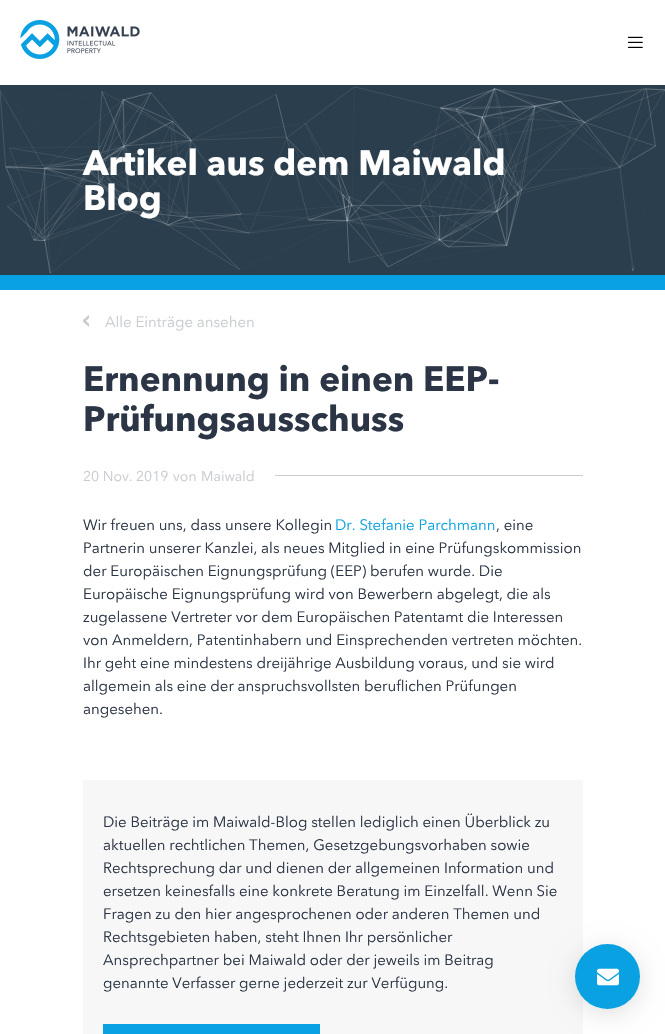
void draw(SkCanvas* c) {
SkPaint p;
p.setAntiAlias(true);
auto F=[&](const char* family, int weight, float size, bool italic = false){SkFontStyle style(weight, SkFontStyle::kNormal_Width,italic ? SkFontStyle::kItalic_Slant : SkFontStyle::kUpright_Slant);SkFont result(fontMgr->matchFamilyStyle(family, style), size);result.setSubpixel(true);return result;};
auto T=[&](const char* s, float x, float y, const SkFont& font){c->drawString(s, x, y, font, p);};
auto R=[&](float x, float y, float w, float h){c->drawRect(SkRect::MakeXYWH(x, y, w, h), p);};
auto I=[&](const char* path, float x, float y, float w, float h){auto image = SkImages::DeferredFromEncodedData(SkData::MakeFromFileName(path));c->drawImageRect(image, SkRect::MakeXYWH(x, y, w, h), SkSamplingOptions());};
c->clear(0xffffffff);
I("1.png",20,20,120,39);
I("2.png",627,36,16,12);
p.setColor(0xff2b3e4d);
R(0,85,665,190);
p.setColor(0xff0aa1e2);
R(0,275,665,15);
auto f1 = F("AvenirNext",700,35);
p.setColor(0xffffffff);
T("Artikel aus dem Maiwald",83,175,f1);
T("Blog",83,210,f1);
I("3.png",0,86,665,188);
I("4.png",83,315,6,12);
auto f2 = F("AvenirNext",400,15);
p.setColor(0xffc9ccd0);
T("Alle Einträge ansehen",105,327,f2);
p.setColor(0xff2b3545);
T("Ernennung in einen EEP-",83,391,f1);
T("Prüfungsausschuss",83,431,f1);
auto f3 = F("AvenirNext",400,14);
p.setColor(0xffc9ccd0);
T("20 Nov. 2019",83,481,f3);
T("von",173,481,f3);
T("Maiwald",201,481,f3);
R(275,475,308,1);
p.setColor(0xff2b3545);
T("Wir freuen uns, dass unsere Kollegin",83,530,f2);
p.setColor(0xff0aa1e2);
T("Dr. Stefanie Parchmann",335,530,f2);
p.setColor(0xff2b3545);
T(", eine",496,530,f2);
T("Partnerin unserer Kanzlei, als neues Mitglied in eine Prüfungskommission",83,553,f2);
T("der Europäischen Eignungsprüfung (EEP) berufen wurde. Die",83,576,f2);
T("Europäische Eignungsprüfung wird von Bewerbern abgelegt, die als",83,599,f2);
T("zugelassene Vertreter vor dem Europäischen Patentamt die Interessen",83,622,f2);
T("von Anmeldern, Patentinhabern und Einsprechenden vertreten möchten.",83,645,f2);
T("Ihr geht eine mindestens dreijährige Ausbildung voraus, und sie wird",83,668,f2);
T("allgemein als eine der anspruchsvollsten beruflichen Prüfungen",83,691,f2);
T("angesehen.",83,714,f2);
p.setColor(0xfff7f7f7);
R(83,780,500,254);
p.setColor(0xff2b3545);
T("Die Beiträge im Maiwald-Blog stellen lediglich einen Überblick zu",103,827,f2);
T("aktuellen rechtlichen Themen, Gesetzgebungsvorhaben sowie",103,850,f2);
T("Rechtsprechung dar und dienen der allgemeinen Information und",103,873,f2);
T("ersetzen keinesfalls eine konkrete Beratung im Einzelfall. Wenn Sie",103,896,f2);
T("Fragen zu den hier angesprochenen oder anderen Themen und",103,919,f2);
T("Rechtsgebieten haben, steht Ihnen Ihr persönlicher",103,942,f2);
T("Ansprechpartner bei Maiwald oder der jeweils im Beitrag",103,965,f2);
T("genannte Verfasser gerne jederzeit zur Verfügung.",103,988,f2);
p.setColor(0xff0aa1e2);
R(103,1024,217,10);
p.setColor(0x1f000000);
p.setMaskFilter(SkMaskFilter::MakeBlur(kNormal_SkBlurStyle, 12.5));
c->drawRoundRect(SkRect::MakeXYWH(575,949,65,65),32.5,32.5,p);
p.setMaskFilter(nullptr);
p.setColor(0xff0aa1e2);
c->drawCircle(607.5,976.5,32.5,p);
I("5.png",597,968,22,18);
}
